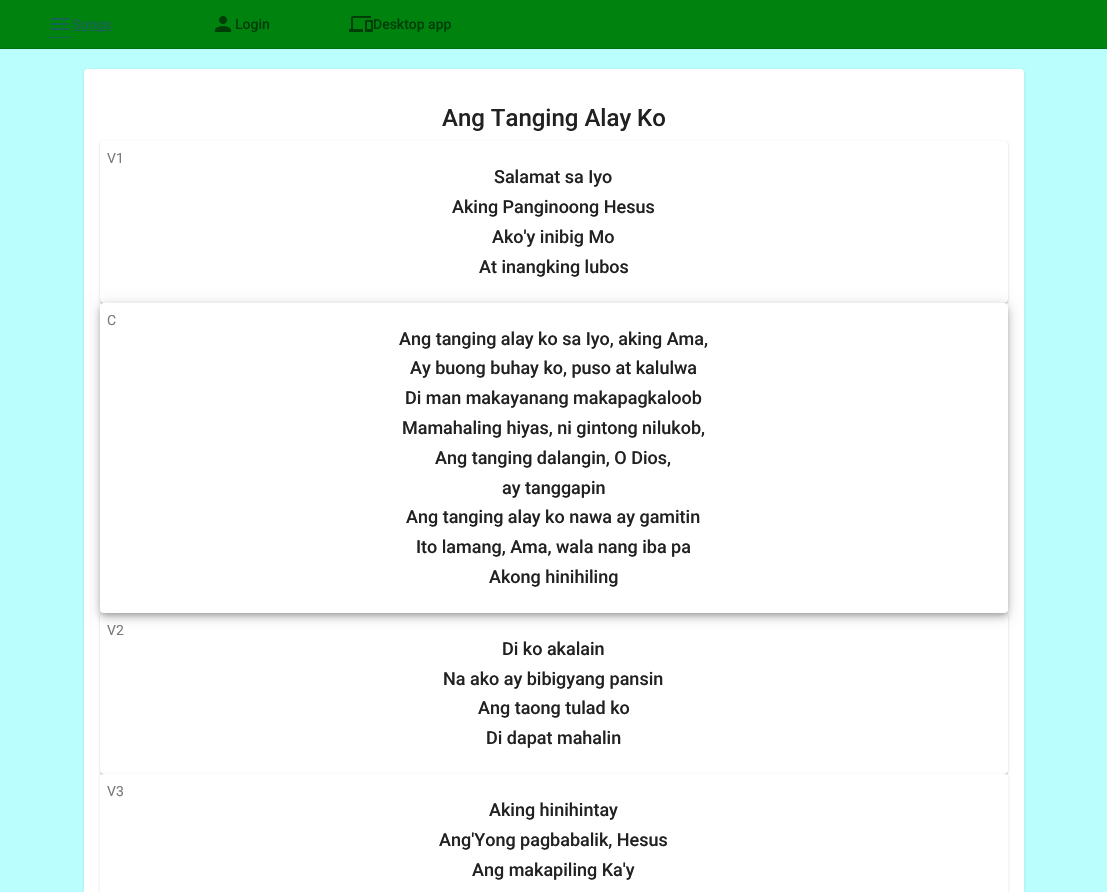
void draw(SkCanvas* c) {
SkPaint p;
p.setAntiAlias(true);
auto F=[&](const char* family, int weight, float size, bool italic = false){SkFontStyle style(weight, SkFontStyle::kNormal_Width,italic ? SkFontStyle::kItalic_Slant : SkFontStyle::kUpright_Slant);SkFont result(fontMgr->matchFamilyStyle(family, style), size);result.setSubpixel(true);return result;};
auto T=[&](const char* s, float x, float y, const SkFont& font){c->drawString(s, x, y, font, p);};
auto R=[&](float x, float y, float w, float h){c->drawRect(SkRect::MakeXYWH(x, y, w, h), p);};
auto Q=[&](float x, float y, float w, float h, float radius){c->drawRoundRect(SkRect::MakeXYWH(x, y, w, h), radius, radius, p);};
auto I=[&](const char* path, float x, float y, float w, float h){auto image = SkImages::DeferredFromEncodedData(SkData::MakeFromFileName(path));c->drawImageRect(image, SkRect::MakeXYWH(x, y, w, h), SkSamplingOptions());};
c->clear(0xffbafffe);
p.setColor(0xff00820e);
R(0,0,1107,48);
p.setColor(0xff00720c);
R(0,48,1107,1);
I("1.png",51,18,18,12);
p.setColor(0xff156550);
R(48,37,24,1);
R(72,30,40,1);
auto f1 = F("Roboto",500,14);
T("Songs",72,29,f1);
I("2.png",215,16,16,16);
p.setColor(0xff003e07);
T("Login",235,29,f1);
I("3.png",349,16,24,16);
T("Desktop app",373,29,f1);
p.setColor(0x1f000000);
p.setMaskFilter(SkMaskFilter::MakeBlur(kNormal_SkBlurStyle, 1.5));
c->drawRoundRect(SkRect::MakeXYWH(84,70,940,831),4,4,p);
p.setMaskFilter(nullptr);
p.setColor(0xffffffff);
Q(84,69,940,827,4);
auto f2 = F("Roboto",500,24);
p.setColor(0xff212121);
T("Ang Tanging Alay Ko",442,126,f2);
p.setColor(0x1f000000);
p.setMaskFilter(SkMaskFilter::MakeBlur(kNormal_SkBlurStyle, 1.5));
c->drawRoundRect(SkRect::MakeXYWH(100,142,908,162),4,4,p);
p.setMaskFilter(nullptr);
p.setColor(0x24000000);
p.setMaskFilter(SkMaskFilter::MakeBlur(kNormal_SkBlurStyle, .5));
c->drawRoundRect(SkRect::MakeXYWH(100,142,908,162),4,4,p);
p.setMaskFilter(nullptr);
p.setColor(0x33000000);
p.setMaskFilter(SkMaskFilter::MakeBlur(kNormal_SkBlurStyle, .5));
c->drawRoundRect(SkRect::MakeXYWH(101,144,906,160),3,3,p);
p.setMaskFilter(nullptr);
p.setColor(0xffffffff);
Q(100,141,908,162,4);
auto f3 = F("Roboto",400,14);
p.setColor(0xff797979);
T("V1",107,163,f3);
auto f4 = F("Roboto",500,18);
p.setColor(0xff212121);
T("Salamat sa Iyo",494,183,f4);
T("Aking Panginoong Hesus",452,213,f4);
T("Ako'y inibig Mo",492,243,f4);
T("At inangking lubos",479,273,f4);
p.setColor(0x1f000000);
p.setMaskFilter(SkMaskFilter::MakeBlur(kNormal_SkBlurStyle, 1.5));
c->drawRoundRect(SkRect::MakeXYWH(100,614,908,161),4,4,p);
p.setMaskFilter(nullptr);
p.setColor(0x24000000);
p.setMaskFilter(SkMaskFilter::MakeBlur(kNormal_SkBlurStyle, .5));
c->drawRoundRect(SkRect::MakeXYWH(100,614,908,161),4,4,p);
p.setMaskFilter(nullptr);
p.setColor(0x33000000);
p.setMaskFilter(SkMaskFilter::MakeBlur(kNormal_SkBlurStyle, .5));
c->drawRoundRect(SkRect::MakeXYWH(101,616,906,159),3,3,p);
p.setMaskFilter(nullptr);
p.setColor(0xffffffff);
Q(100,613,908,161,4);
p.setColor(0x1f000000);
p.setMaskFilter(SkMaskFilter::MakeBlur(kNormal_SkBlurStyle, 7));
c->drawRoundRect(SkRect::MakeXYWH(100,304,908,310),4,4,p);
p.setMaskFilter(nullptr);
p.setColor(0x24000000);
p.setMaskFilter(SkMaskFilter::MakeBlur(kNormal_SkBlurStyle, 4));
c->drawRoundRect(SkRect::MakeXYWH(100,308,908,310),4,4,p);
p.setMaskFilter(nullptr);
p.setColor(0x33000000);
p.setMaskFilter(SkMaskFilter::MakeBlur(kNormal_SkBlurStyle, 2.5));
c->drawRoundRect(SkRect::MakeXYWH(101,307,906,308),3,3,p);
p.setMaskFilter(nullptr);
p.setColor(0xffffffff);
Q(100,303,908,310,4);
p.setColor(0xff797979);
T("C",107,325,f3);
p.setColor(0xff212121);
T("Ang tanging alay ko sa Iyo, aking Ama,",399,345,f4);
T("Ay buong buhay ko, puso at kalulwa",410,374,f4);
T("Di man makayanang makapagkaloob",405,404,f4);
T("Mamahaling hiyas, ni gintong nilukob,",402,434,f4);
T("Ang tanging dalangin, O Dios,",435,464,f4);
T("ay tanggapin",502,494,f4);
T("Ang tanging alay ko nawa ay gamitin",406,523,f4);
T("Ito lamang, Ama, wala nang iba pa",416,553,f4);
T("Akong hinihiling",489,583,f4);
p.setColor(0xff797979);
T("V2",107,635,f3);
p.setColor(0xff212121);
T("Di ko akalain",502,655,f4);
T("Na ako ay bibigyang pansin",443,685,f4);
T("Ang taong tulad ko",478,714,f4);
T("Di dapat mahalin",486,744,f4);
p.setColor(0x1f000000);
p.setMaskFilter(SkMaskFilter::MakeBlur(kNormal_SkBlurStyle, 1.5));
c->drawRoundRect(SkRect::MakeXYWH(100,775,908,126),4,4,p);
p.setMaskFilter(nullptr);
p.setColor(0xffffffff);
Q(100,774,908,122,4);
p.setColor(0xff797979);
T("V3",107,796,f3);
p.setColor(0xff212121);
T("Aking hinihintay",489,816,f4);
T("Ang'Yong pagbabalik, Hesus",439,846,f4);
T("Ang makapiling Ka'y",472,876,f4);
}
